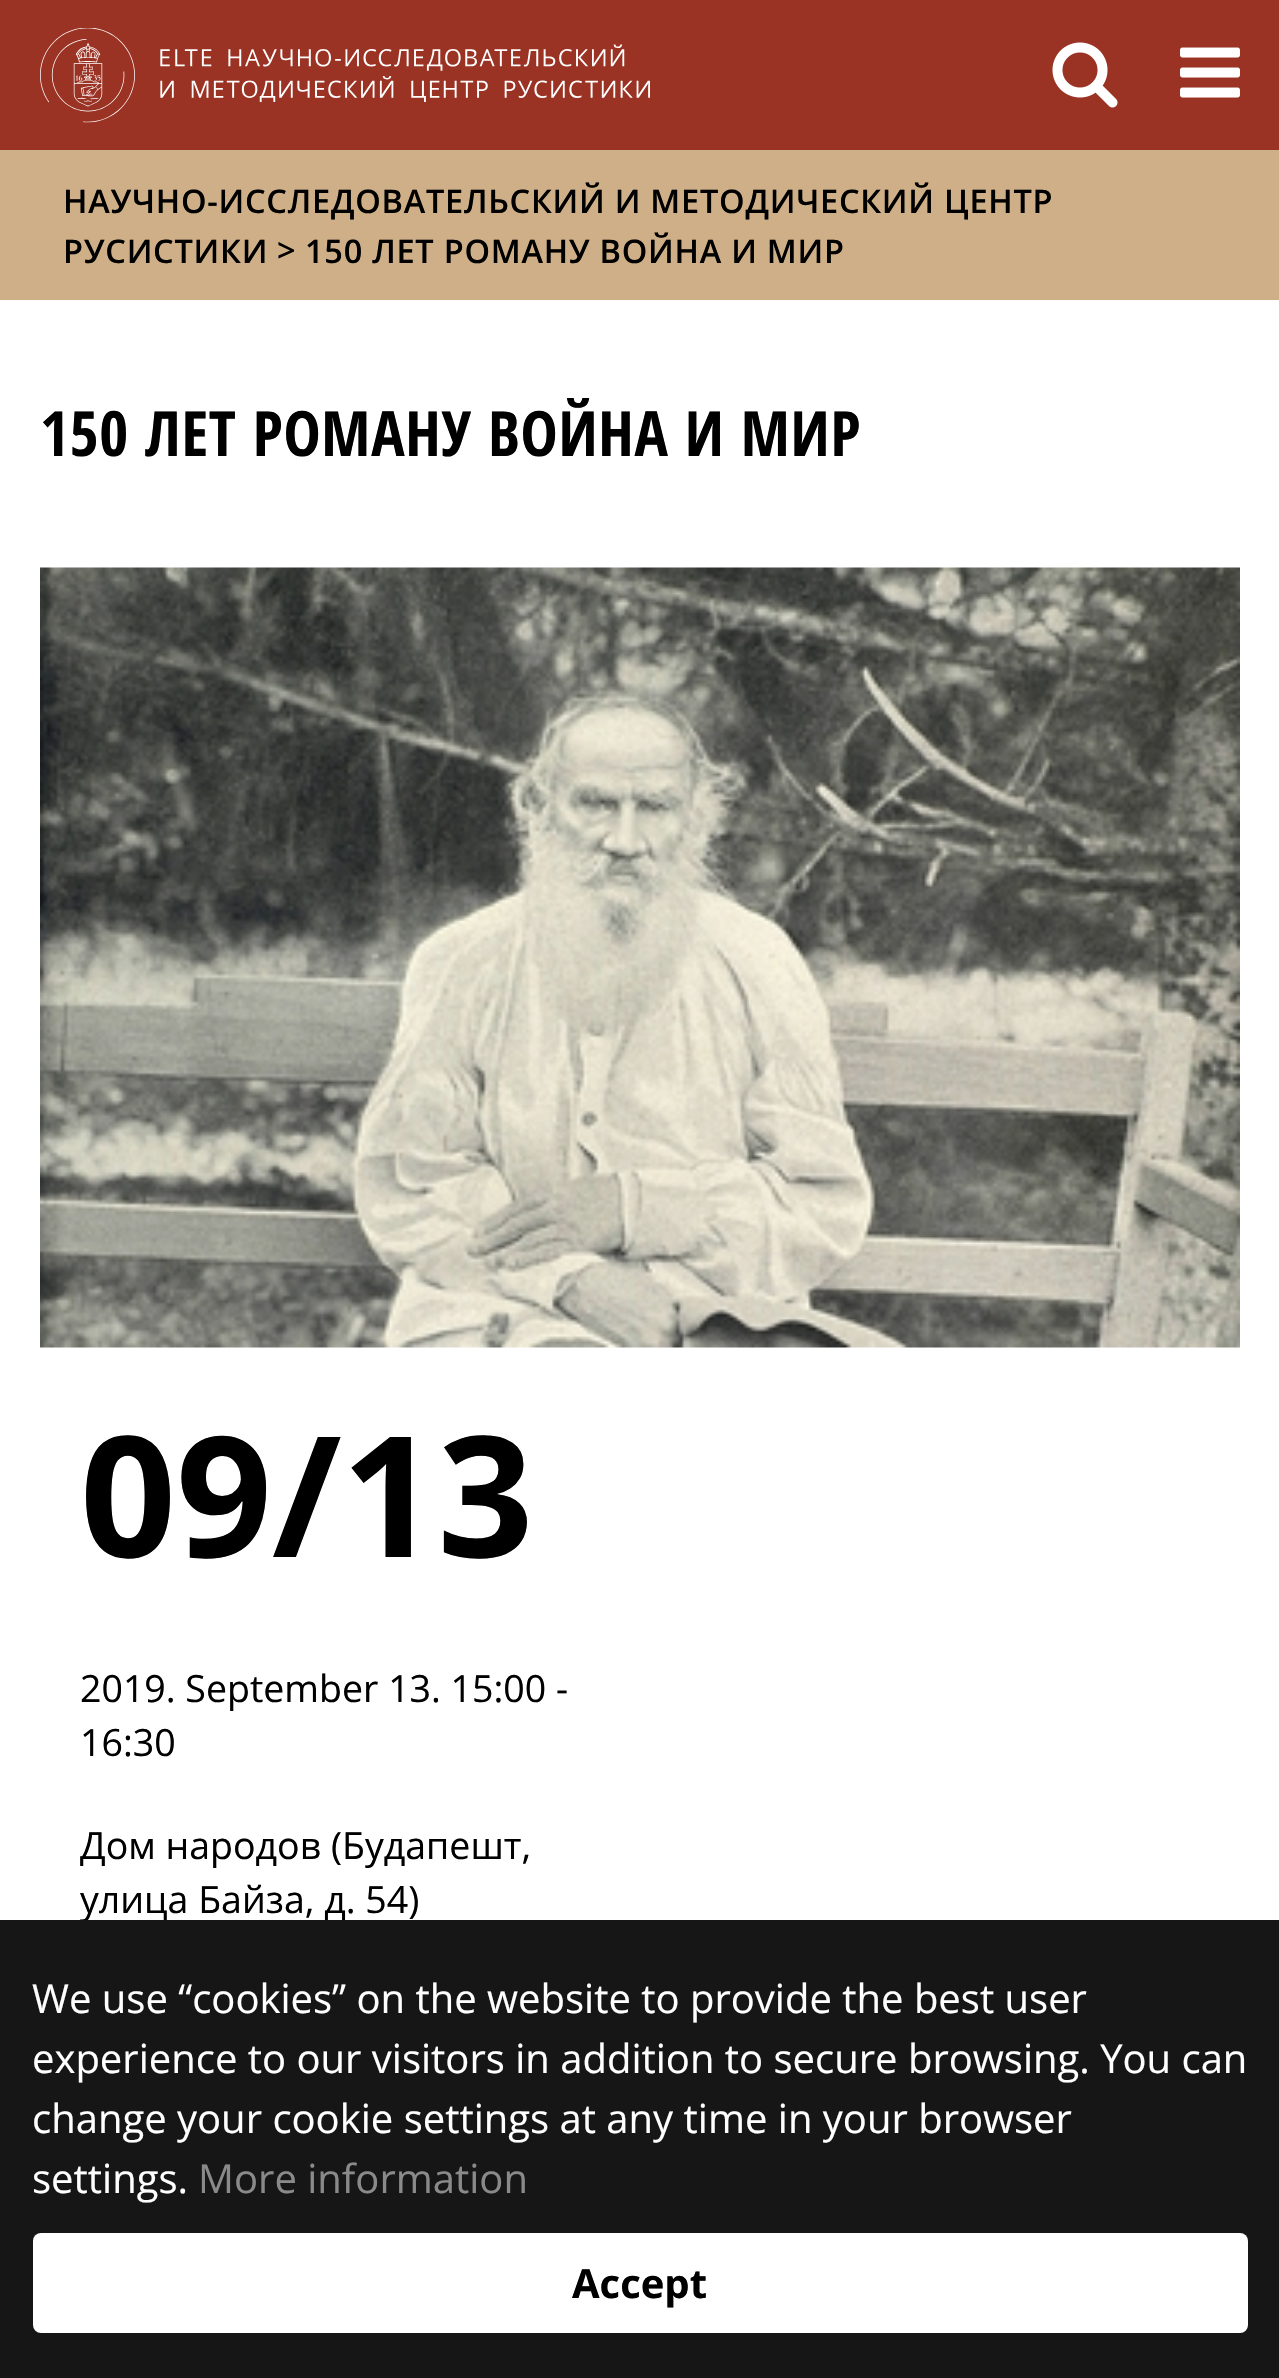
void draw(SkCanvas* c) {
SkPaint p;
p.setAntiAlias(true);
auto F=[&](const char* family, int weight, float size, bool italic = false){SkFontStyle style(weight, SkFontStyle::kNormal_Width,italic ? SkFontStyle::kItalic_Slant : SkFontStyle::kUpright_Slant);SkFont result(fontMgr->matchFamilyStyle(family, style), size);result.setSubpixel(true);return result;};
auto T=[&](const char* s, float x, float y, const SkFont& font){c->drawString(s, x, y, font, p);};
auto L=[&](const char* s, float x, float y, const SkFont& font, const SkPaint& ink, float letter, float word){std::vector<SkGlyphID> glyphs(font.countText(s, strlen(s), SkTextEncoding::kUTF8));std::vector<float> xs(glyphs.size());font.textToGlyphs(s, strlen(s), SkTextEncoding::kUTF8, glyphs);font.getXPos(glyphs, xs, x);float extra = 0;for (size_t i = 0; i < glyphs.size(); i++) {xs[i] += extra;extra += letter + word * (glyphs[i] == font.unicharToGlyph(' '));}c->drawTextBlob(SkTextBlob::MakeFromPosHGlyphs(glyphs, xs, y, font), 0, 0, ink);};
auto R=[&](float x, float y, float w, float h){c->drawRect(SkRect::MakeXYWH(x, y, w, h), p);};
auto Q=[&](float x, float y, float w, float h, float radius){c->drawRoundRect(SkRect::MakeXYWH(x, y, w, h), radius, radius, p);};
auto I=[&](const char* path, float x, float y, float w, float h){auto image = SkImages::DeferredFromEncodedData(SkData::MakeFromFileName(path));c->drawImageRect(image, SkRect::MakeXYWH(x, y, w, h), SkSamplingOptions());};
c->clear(0xffffffff);
p.setColor(0xff9a3324);
R(0,0,1279,150);
I("1.png",40,28,610,95);
I("2.png",1052,42,66,66);
I("3.png",1180,47,60,51);
p.setColor(0xffceaf87);
R(0,150,1279,150);
auto f1 = F("Open Sans",600,32.5);
p.setColor(0xff000000);
L("НАУЧНО-ИССЛЕДОВАТЕЛЬСКИЙ И МЕТОДИЧЕСКИЙ ЦЕНТР",63,213,f1,p,.75,0);
L("РУСИСТИКИ",63,263,f1,p,.75,0);
L(">",277,262,f1,p,.75,0);
L("150 ЛЕТ РОМАНУ ВОЙНА И МИР",305,263,f1,p,.75,0);
auto f2 = F("Open Sans Condensed",700,62.5);
L("150 ЛЕТ РОМАНУ ВОЙНА И МИР",40,456,f2,p,.75,0);
I("4.png",40,567,1200,781);
auto f3 = F("Open Sans",700,168);
T("09/13",80,1557,f3);
auto f4 = F("Open Sans",400,37.5);
T("2019. September 13. 15:00 -",80,1702,f4);
T("16:30",80,1756,f4);
T("Дом народов (Будапешт,",80,1859,f4);
T("улица Байза, д. 54)",80,1913,f4);
p.setColor(0xff161616);
R(0,1920,1279,458);
auto f5 = F("Open Sans",400,40);
p.setColor(0xffffffff);
T("We use “cookies” on the website to provide the best user",32,2013,f5);
T("experience to our visitors in addition to secure browsing. You can",32,2073,f5);
T("change your cookie settings at any time in your browser",32,2133,f5);
T("settings.",32,2193,f5);
p.setColor(0xff8a8a8a);
T("More information",198,2193,f5);
p.setColor(0xffffffff);
Q(33,2233,1215,100,8);
auto f6 = F("Open Sans",700,40);
p.setColor(0xff000000);
T("Accept",572,2298,f6);
}
